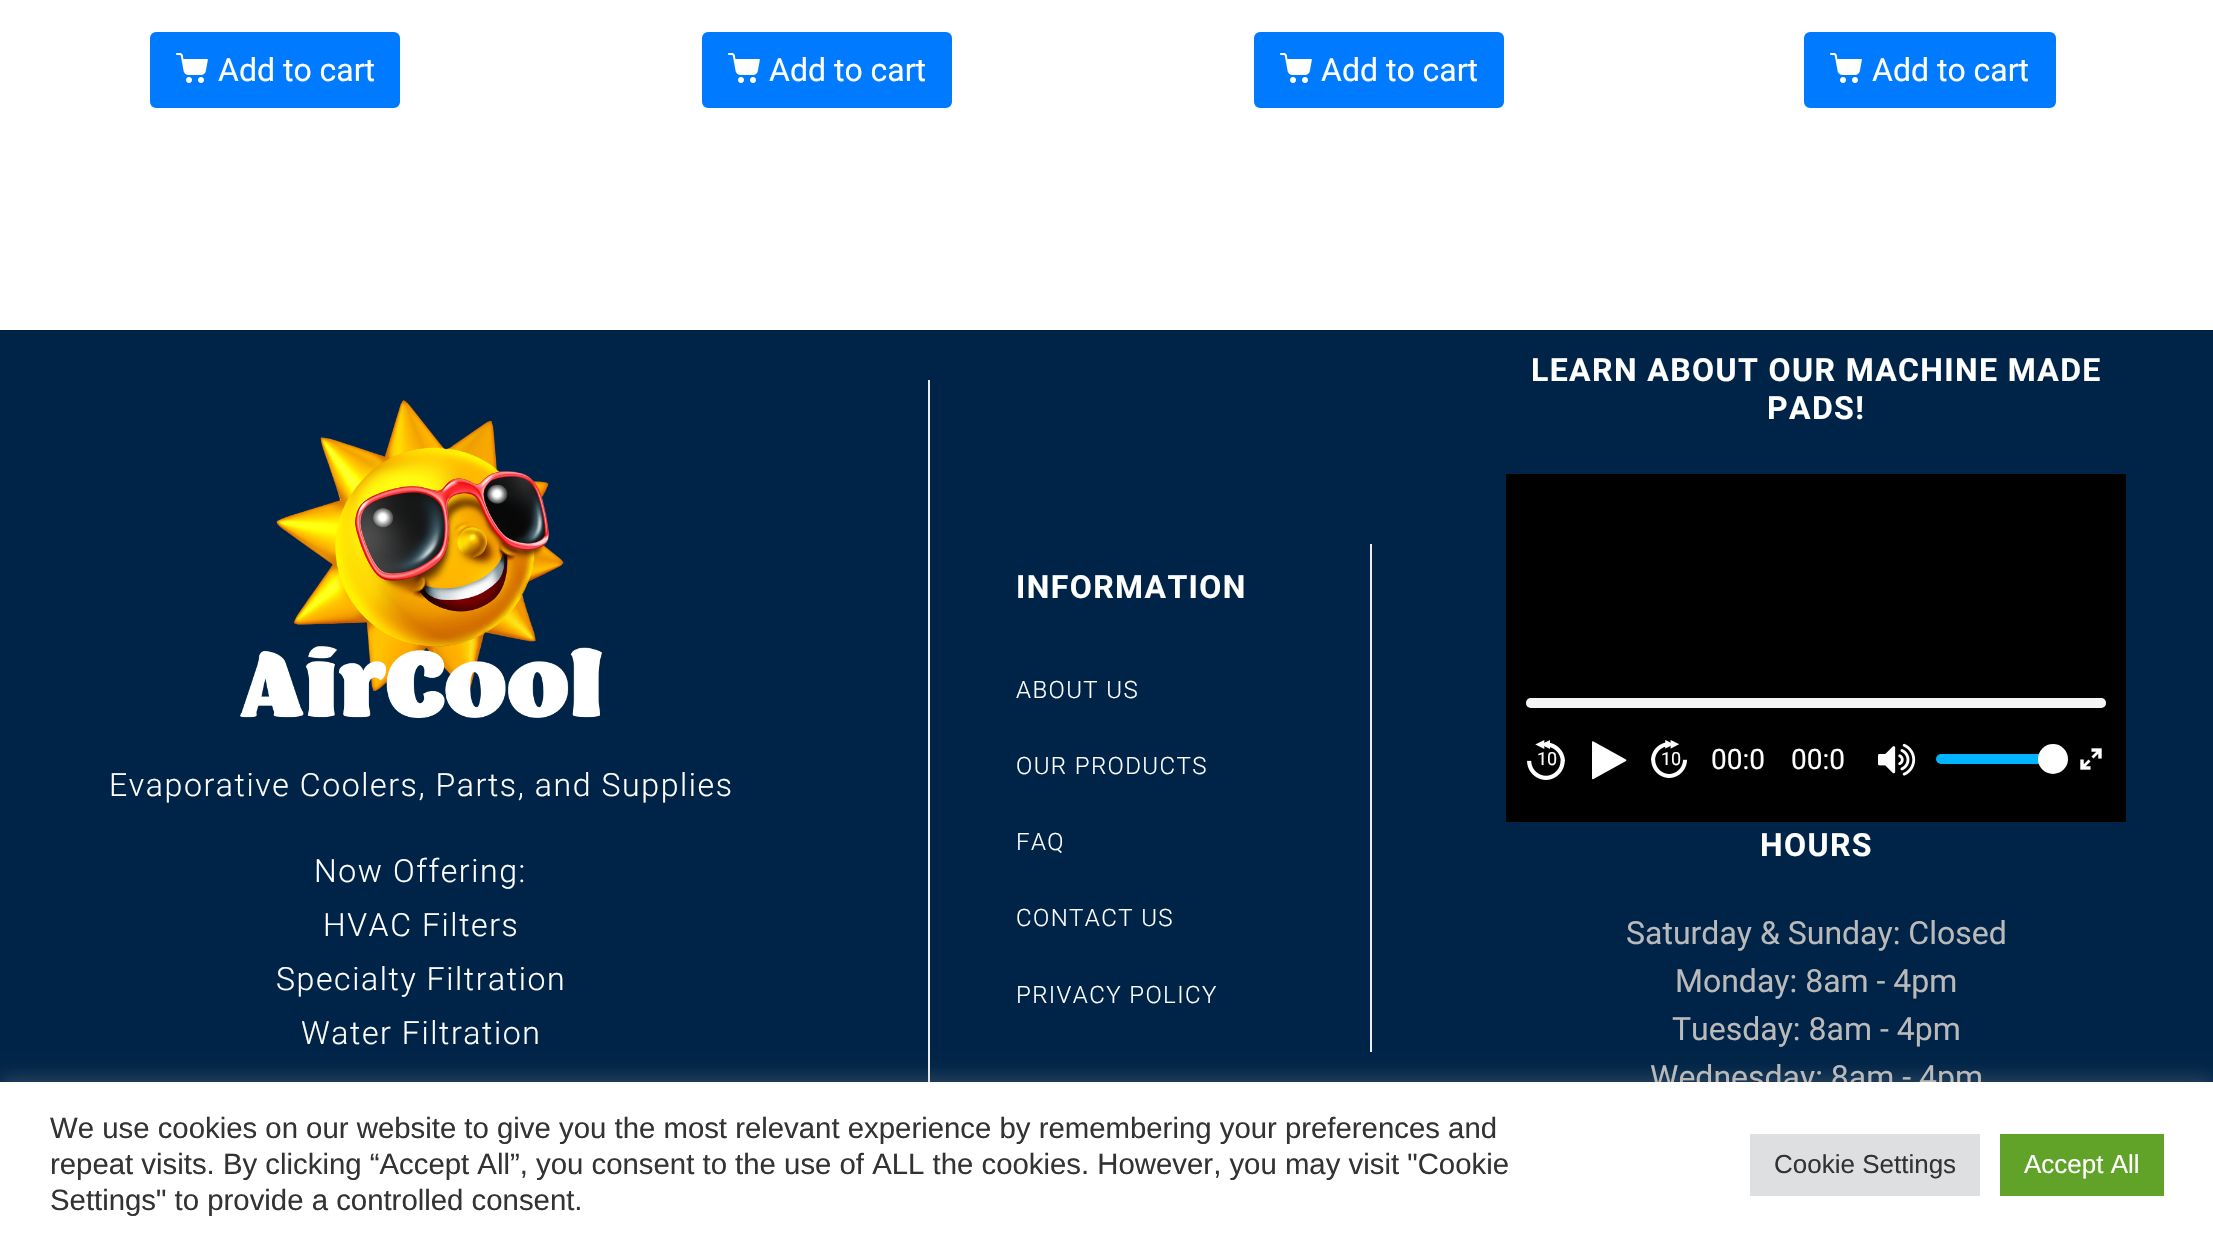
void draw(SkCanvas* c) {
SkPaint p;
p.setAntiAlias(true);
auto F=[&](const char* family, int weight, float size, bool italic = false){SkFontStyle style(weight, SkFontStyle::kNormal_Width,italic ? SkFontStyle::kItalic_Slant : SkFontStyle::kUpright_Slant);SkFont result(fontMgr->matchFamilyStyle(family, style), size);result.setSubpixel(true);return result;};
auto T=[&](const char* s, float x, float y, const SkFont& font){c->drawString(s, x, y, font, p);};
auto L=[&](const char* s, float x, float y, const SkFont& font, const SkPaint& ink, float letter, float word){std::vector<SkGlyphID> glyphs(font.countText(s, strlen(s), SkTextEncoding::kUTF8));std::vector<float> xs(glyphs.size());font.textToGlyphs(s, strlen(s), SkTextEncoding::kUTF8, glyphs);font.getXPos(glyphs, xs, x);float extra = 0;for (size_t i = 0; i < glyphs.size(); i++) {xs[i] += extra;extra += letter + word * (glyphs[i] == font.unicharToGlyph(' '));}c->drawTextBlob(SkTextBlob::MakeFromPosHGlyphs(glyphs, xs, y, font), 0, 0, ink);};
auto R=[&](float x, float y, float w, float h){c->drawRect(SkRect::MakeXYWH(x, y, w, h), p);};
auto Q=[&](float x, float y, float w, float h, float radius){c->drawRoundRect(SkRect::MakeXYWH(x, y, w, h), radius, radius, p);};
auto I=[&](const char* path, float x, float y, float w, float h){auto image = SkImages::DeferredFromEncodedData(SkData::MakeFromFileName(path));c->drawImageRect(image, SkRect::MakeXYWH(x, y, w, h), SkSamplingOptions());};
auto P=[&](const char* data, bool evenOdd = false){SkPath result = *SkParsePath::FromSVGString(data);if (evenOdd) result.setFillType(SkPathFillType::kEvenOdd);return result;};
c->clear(0xffffffff);
p.setColor(0xff007bff);
c->drawRoundRect(SkRect::MakeXYWH(151,33,248,74),5,5,p);
p.setStroke(true);
p.setStrokeWidth(2);
c->drawRoundRect(SkRect::MakeXYWH(151,33,248,74),5,5,p);
I("1.png",176,53,32,30);
auto f1 = F("Roboto",400,32);
p.setStroke(false);
p.setColor(0xffffffff);
T("Add to cart",218,81,f1);
p.setColor(0xff007bff);
c->drawRoundRect(SkRect::MakeXYWH(703,33,248,74),5,5,p);
p.setStroke(true);
c->drawRoundRect(SkRect::MakeXYWH(703,33,248,74),5,5,p);
I("1.png",728,53,32,30);
p.setStroke(false);
p.setColor(0xffffffff);
T("Add to cart",769,81,f1);
p.setColor(0xff007bff);
c->drawRoundRect(SkRect::MakeXYWH(1255,33,248,74),5,5,p);
p.setStroke(true);
c->drawRoundRect(SkRect::MakeXYWH(1255,33,248,74),5,5,p);
I("1.png",1280,53,32,30);
p.setStroke(false);
p.setColor(0xffffffff);
T("Add to cart",1321,81,f1);
p.setColor(0xff007bff);
c->drawRoundRect(SkRect::MakeXYWH(1805,33,250,74),5,5,p);
p.setStroke(true);
c->drawRoundRect(SkRect::MakeXYWH(1805,33,250,74),5,5,p);
I("1.png",1830,53,32,30);
p.setStroke(false);
p.setColor(0xffffffff);
T("Add to cart",1872,81,f1);
p.setColor(0xff002447);
R(0,330,2213,752);
p.setColor(0xffececec);
R(928,380,2,702);
I("2.png",240,400,362,318);
auto f2 = F("Roboto",300,32);
p.setColor(0xffffffff);
L("Evaporative Coolers, Parts, and Supplies",109,796,f2,p,1.6,0);
L("Now Offering:",314,882,f2,p,1.6,0);
L("HVAC Filters",323,936,f2,p,1.6,0);
L("Specialty Filtration",276,990,f2,p,1.6,0);
L("Water Filtration",301,1044,f2,p,1.6,0);
p.setColor(0xffececec);
R(1370,544,2,508);
auto f3 = F("Roboto",700,32);
p.setColor(0xffffffff);
L("INFORMATION",1016,598,f3,p,1.4,0);
auto f4 = F("Roboto",300,24);
L("ABOUT US",1016,698,f4,p,1.4,0);
L("OUR PRODUCTS",1016,774,f4,p,1.4,0);
L("FAQ",1016,850,f4,p,1.4,0);
L("CONTACT US",1016,926,f4,p,1.4,0);
L("PRIVACY POLICY",1016,1003,f4,p,1.4,0);
L("LEARN ABOUT OUR MACHINE MADE",1531,381,f3,p,1.4,0);
L("PADS!",1767,419,f3,p,1.4,0);
p.setColor(0xff000000);
R(1506,474,620,348);
p.setColor(0xff8f8f92);
Q(1526,698,580,10,5);
p.setColor(0xe6ffffff);
Q(1526,698,580,10,5);
I("3.png",1527,740,38,40);
auto f5 = F("Roboto",400,18);
p.setColor(0xffffffff);
T("10",1537,765,f5);
c->drawPath(P("M1626 761c.5-.5 .5-1 0-1.5l-32.5-18c-1-.5-1.5 0-1.5 .5v36.5c0 .5 .5 1 1.5 .5z"),p);
I("4.png",1651,740,36,38);
T("10",1661,765,f5);
auto f6 = F("Roboto",400,28);
T("00:0",1711,769,f6);
T("00:0",1791,769,f6);
I("5.png",1878,743,38,33);
p.setColor(0xff00b4ff);
Q(1936,754,120,10,5);
p.setColor(0xffffffff);
c->drawCircle(2053,759,15,p);
I("6.png",2080,748,22,22);
L("HOURS",1760,856,f3,p,1.4,0);
p.setColor(0xffbababa);
T("Saturday & Sunday: Closed",1626,944,f1);
T("Monday: 8am - 4pm",1675,992,f1);
T("Tuesday: 8am - 4pm",1672,1040,f1);
T("Wednesday: 8am - 4pm",1650,1088,f1);
p.setColor(0x4dacabab);
p.setMaskFilter(SkMaskFilter::MakeBlur(kNormal_SkBlurStyle, 10));
c->drawRect(SkRect::MakeXYWH(0,1080,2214,164),p);
p.setMaskFilter(nullptr);
p.setColor(0xffffffff);
R(0,1082,2213,163);
auto f7 = F("Liberation Sans",400,29.35);
p.setColor(0xff333333);
T("We use cookies on our website to give you the most relevant experience by remembering your preferences and",50,1138,f7);
T("repeat visits. By clicking “Accept All”, you consent to the use of ALL the cookies. However, you may visit \"Cookie",50,1174,f7);
T("Settings\" to provide a controlled consent.",50,1210,f7);
p.setColor(0xffdedfe0);
R(1750,1134,230,62);
auto f8 = F("Liberation Sans",400,26);
p.setColor(0xff333333);
T("Cookie Settings",1774,1173,f8);
p.setColor(0xff61a229);
R(2000,1134,164,62);
p.setColor(0xffffffff);
T("Accept All",2024,1173,f8);
}
